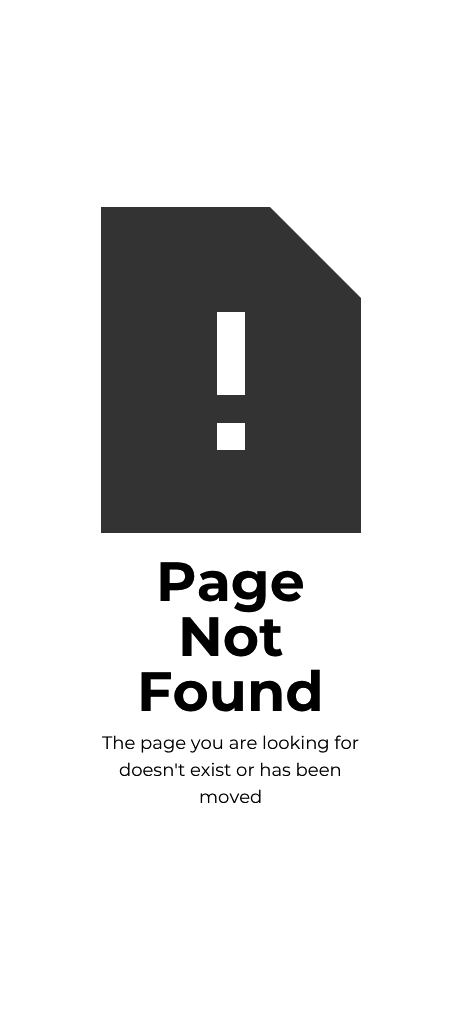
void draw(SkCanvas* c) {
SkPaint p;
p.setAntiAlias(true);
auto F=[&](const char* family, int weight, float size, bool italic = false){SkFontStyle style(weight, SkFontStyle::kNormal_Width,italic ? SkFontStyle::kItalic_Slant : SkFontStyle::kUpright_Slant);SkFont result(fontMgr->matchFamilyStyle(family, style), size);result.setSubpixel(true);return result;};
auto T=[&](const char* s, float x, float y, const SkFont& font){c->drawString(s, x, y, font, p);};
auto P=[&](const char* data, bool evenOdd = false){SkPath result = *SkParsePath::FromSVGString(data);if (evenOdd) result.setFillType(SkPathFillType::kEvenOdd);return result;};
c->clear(0xffffffff);
p.setColor(0xff333333);
c->drawPath(P("M101 207h169l91 91v235h-260zm116 105h28v83h-28zm0 111h28v27h-28z",true),p);
auto f1 = F("Montserrat",700,55.5);
p.setColor(0xff000000);
T("Page",156,601,f1);
T("Not",178,656,f1);
T("Found",137,711,f1);
auto f2 = F("Montserrat",400,18);
T("The page you are looking for",102,749,f2);
T("doesn't exist or has been",119,776,f2);
T("moved",199,803,f2);
}
